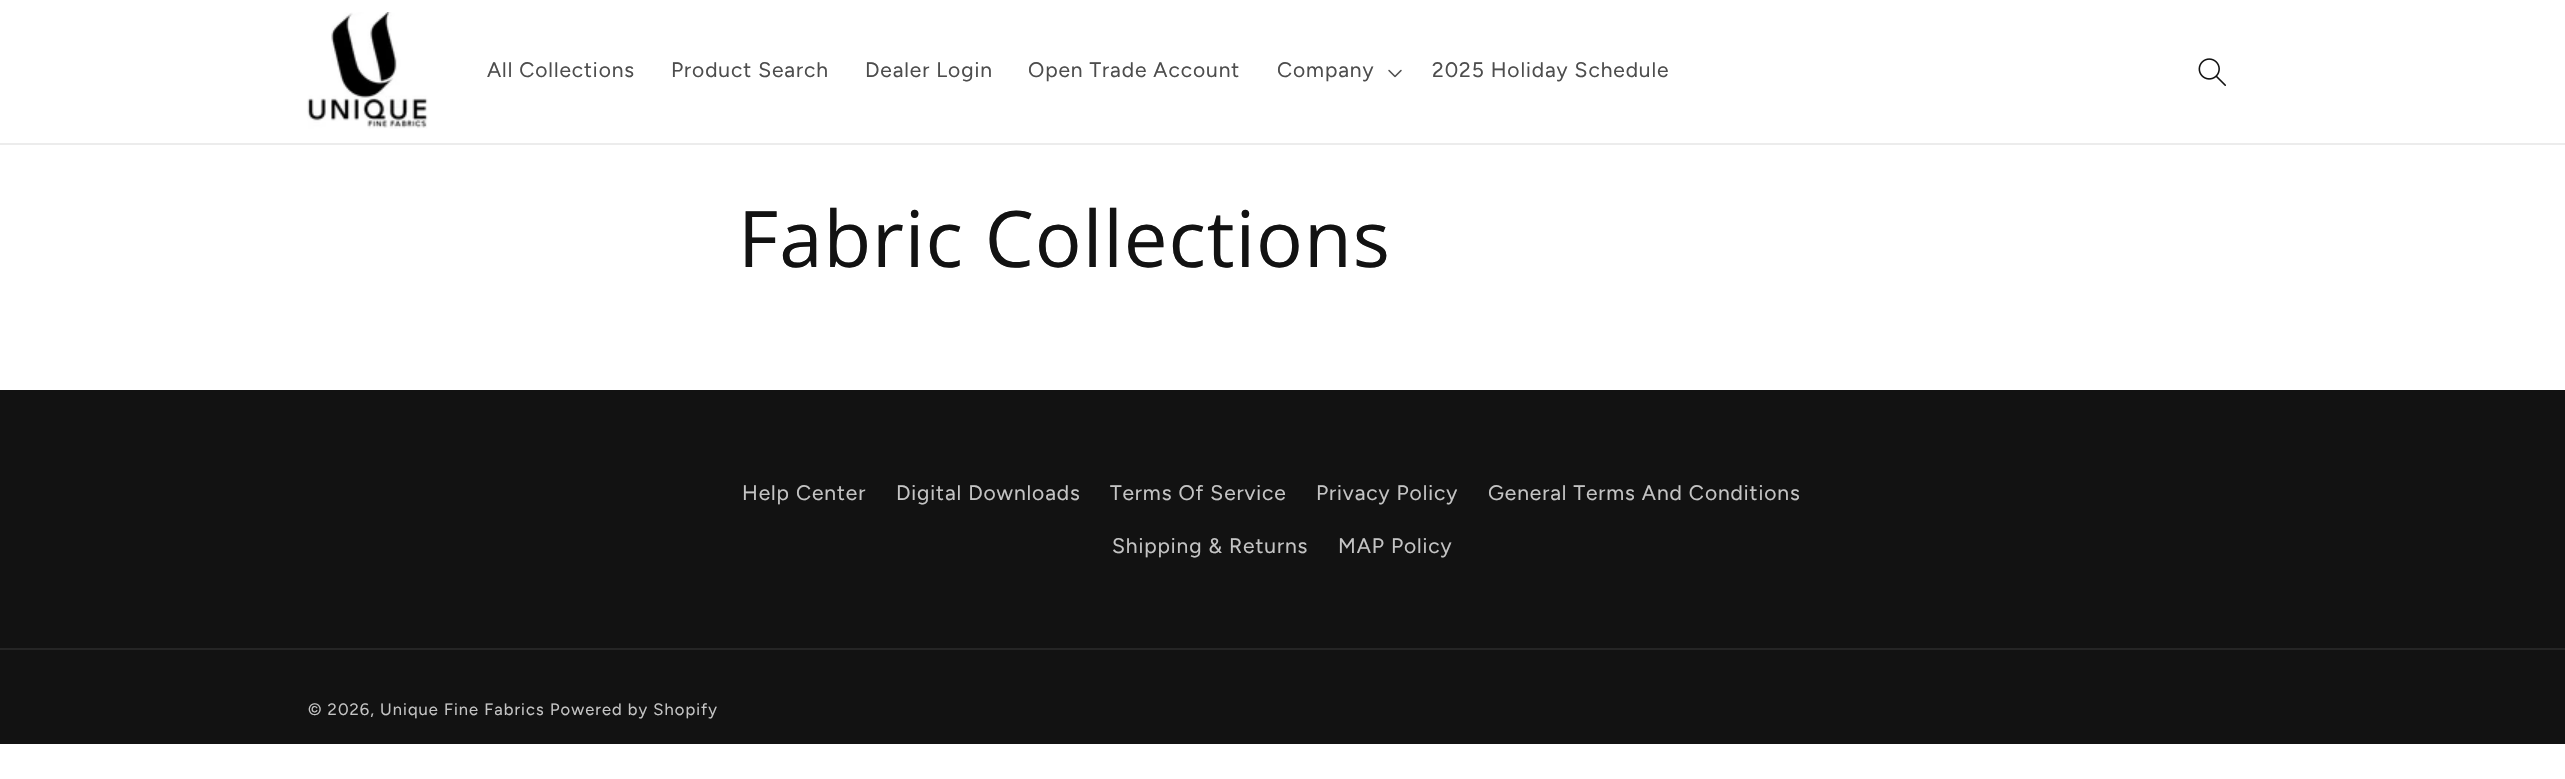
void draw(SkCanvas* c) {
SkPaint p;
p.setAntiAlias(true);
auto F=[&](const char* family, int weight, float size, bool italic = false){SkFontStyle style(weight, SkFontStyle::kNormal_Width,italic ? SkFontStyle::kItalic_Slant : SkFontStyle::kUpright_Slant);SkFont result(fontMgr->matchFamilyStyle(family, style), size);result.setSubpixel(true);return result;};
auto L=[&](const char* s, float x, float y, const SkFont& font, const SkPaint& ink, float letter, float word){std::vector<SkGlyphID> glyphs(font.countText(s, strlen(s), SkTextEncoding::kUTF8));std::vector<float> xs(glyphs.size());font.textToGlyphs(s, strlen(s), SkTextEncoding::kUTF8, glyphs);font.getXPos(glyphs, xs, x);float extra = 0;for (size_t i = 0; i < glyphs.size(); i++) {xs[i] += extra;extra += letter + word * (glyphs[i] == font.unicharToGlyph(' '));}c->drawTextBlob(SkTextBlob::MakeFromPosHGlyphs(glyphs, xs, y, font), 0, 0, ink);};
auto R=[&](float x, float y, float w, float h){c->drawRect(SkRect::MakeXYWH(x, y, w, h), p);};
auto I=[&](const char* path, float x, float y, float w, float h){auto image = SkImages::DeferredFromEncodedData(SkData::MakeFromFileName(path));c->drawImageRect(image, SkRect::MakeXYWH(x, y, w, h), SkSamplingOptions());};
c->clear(0xffffffff);
p.setColor(0xffececec);
R(0,143,2565,2);
I("1.png",307,12,121,117);
auto f1 = F("Figtree",400,21);
p.setColor(0xff4d4d4d);
L("All Collections",487,77,f1,p,.9,0);
L("Product Search",671,77,f1,p,.9,0);
L("Dealer Login",865,77,f1,p,.9,0);
L("Open Trade Account",1028,77,f1,p,.9,0);
L("Company",1277,77,f1,p,.9,0);
I("2.png",1388,69,14,9);
L("2025 Holiday Schedule",1432,77,f1,p,.9,0);
I("3.png",2198,58,28,28);
auto f2 = F("Open Sans",400,78);
p.setColor(0xff121212);
L("Fabric Collections",738,267,f2,p,.9,0);
R(0,390,2565,354);
p.setColor(0xffc4c4c4);
L("Help Center",742,500,f1,p,.9,0);
L("Digital Downloads",896,500,f1,p,.9,0);
L("Terms Of Service",1110,500,f1,p,.9,0);
L("Privacy Policy",1316,500,f1,p,.9,0);
L("General Terms And Conditions",1488,500,f1,p,.9,0);
L("Shipping & Returns",1112,553,f1,p,.9,0);
L("MAP Policy",1338,553,f1,p,.9,0);
p.setColor(0xff252525);
R(0,648,2565,2);
auto f3 = F("Figtree",400,16.5);
p.setColor(0xffc4c4c4);
L("© 2026, Unique Fine Fabrics",308,715,f3,p,1.05,0);
L("Powered by Shopify",550,715,f3,p,1.05,0);
}
